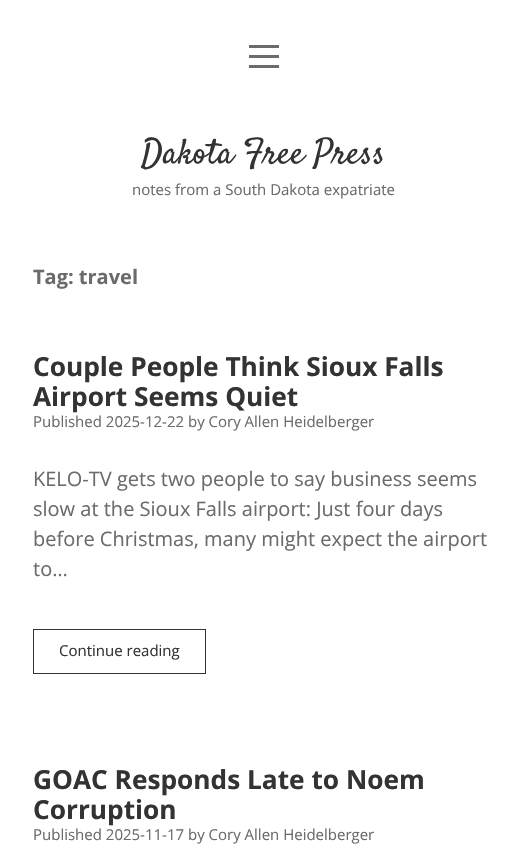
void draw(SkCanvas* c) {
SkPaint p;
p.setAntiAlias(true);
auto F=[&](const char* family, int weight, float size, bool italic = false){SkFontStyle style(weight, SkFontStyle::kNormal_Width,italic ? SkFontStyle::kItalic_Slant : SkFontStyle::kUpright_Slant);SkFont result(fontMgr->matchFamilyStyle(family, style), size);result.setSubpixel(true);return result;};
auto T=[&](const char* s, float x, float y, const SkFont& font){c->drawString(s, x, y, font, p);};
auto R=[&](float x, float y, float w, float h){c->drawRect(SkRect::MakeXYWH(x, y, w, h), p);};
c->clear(0xffffffff);
p.setColor(0xff6b6b6b);
R(249,45,30,3);
R(249,55,30,3);
R(249,65,30,3);
auto f1 = F("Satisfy",400,35);
p.setColor(0xff333333);
T("Dakota Free Press",141,163,f1);
auto f2 = F("Open Sans",400,15);
p.setColor(0xff6b6b6b);
T("notes from a South Dakota expatriate",132,195,f2);
auto f3 = F("Open Sans",700,20);
T("Tag: travel",33,284,f3);
auto f4 = F("Open Sans",700,26.25);
p.setColor(0xff333333);
T("Couple People Think Sioux Falls",33,376,f4);
T("Airport Seems Quiet",33,406,f4);
p.setColor(0xff6b6b6b);
T("Published 2025-12-22 by Cory Allen Heidelberger",33,427,f2);
auto f5 = F("Open Sans",400,20);
T("KELO-TV gets two people to say business seems",33,486,f5);
T("slow at the Sioux Falls airport: Just four days",33,516,f5);
T("before Christmas, many might expect the airport",33,546,f5);
T("to…",33,576,f5);
p.setStroke(true);
p.setStrokeWidth(1);
p.setColor(0xff333333);
c->drawRect(SkRect::MakeXYWH(33.5,629.5,172,44),p);
p.setStroke(false);
T("Continue reading",59,656,f2);
T("GOAC Responds Late to Noem",33,789,f4);
T("Corruption",33,819,f4);
p.setColor(0xff6b6b6b);
T("Published 2025-11-17 by Cory Allen Heidelberger",33,840,f2);
}
